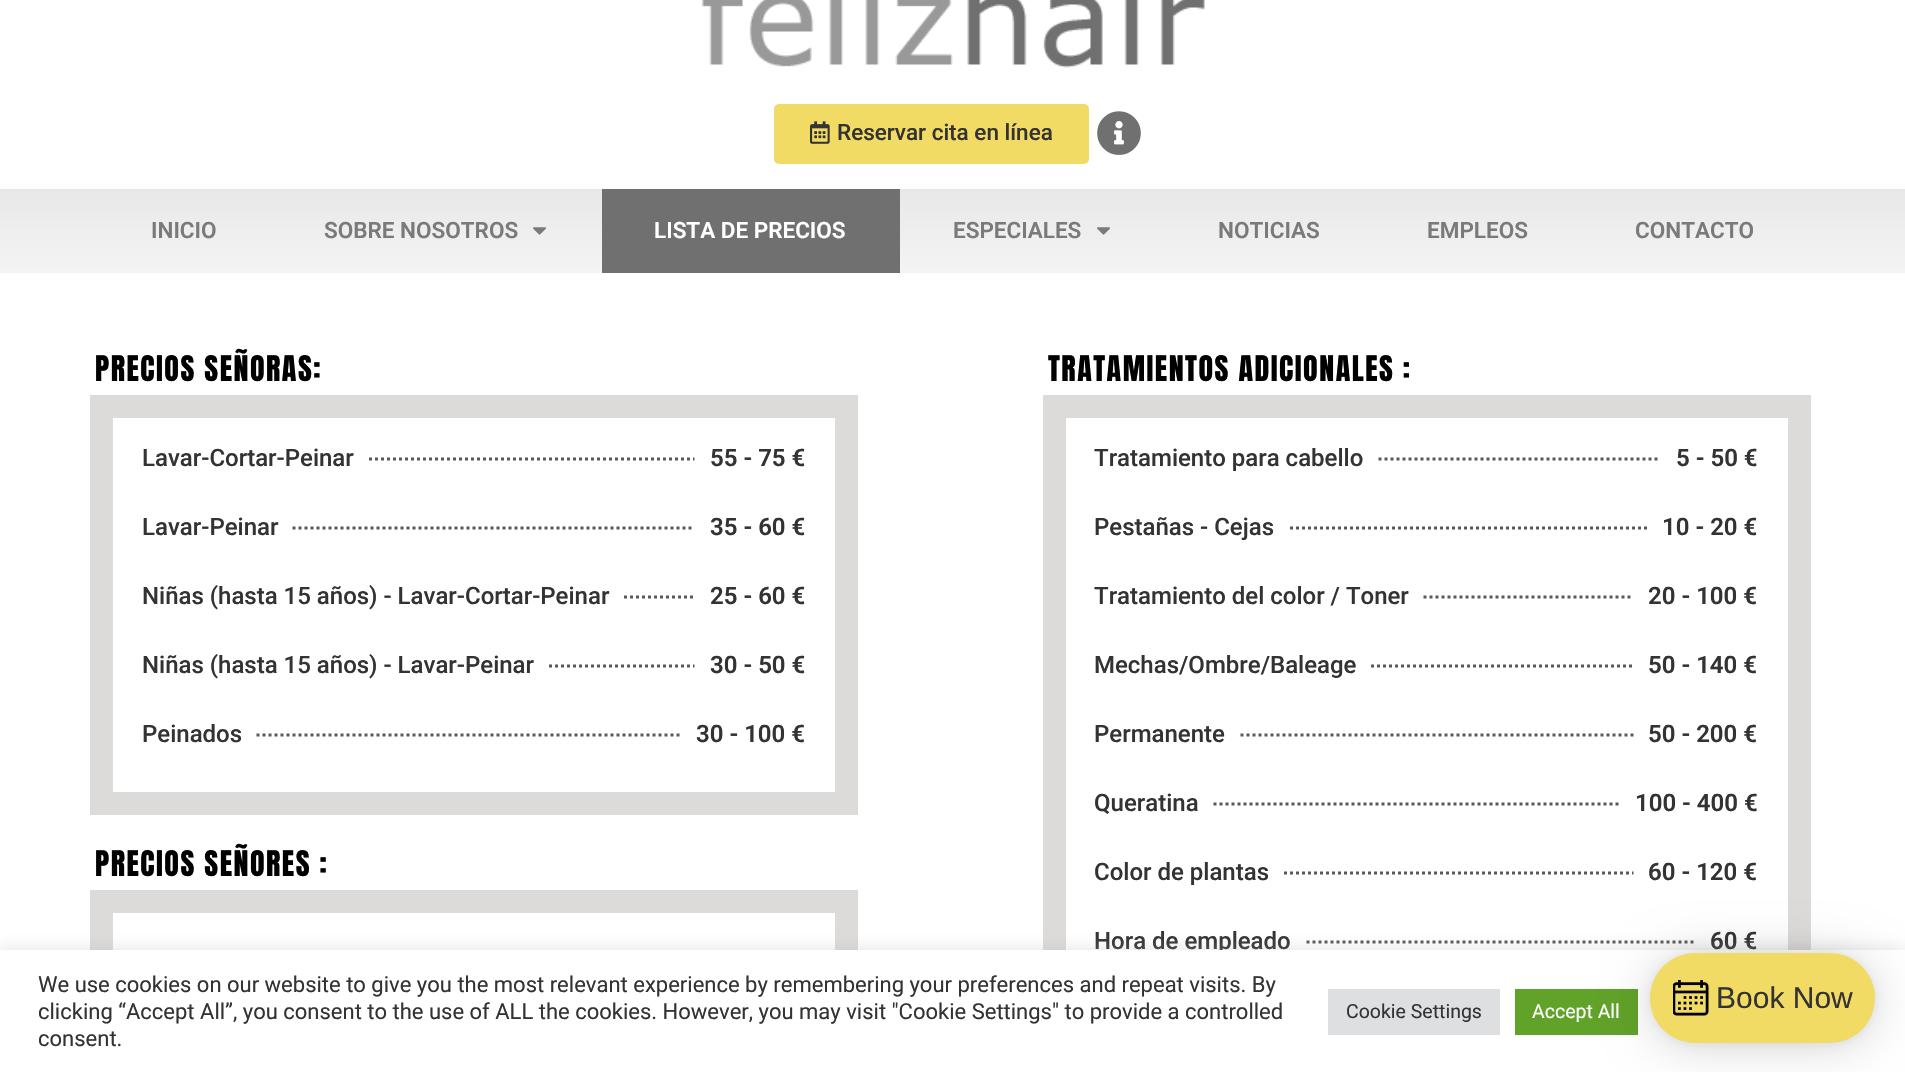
void draw(SkCanvas* c) {
SkPaint p;
p.setAntiAlias(true);
auto F=[&](const char* family, int weight, float size, bool italic = false){SkFontStyle style(weight, SkFontStyle::kNormal_Width,italic ? SkFontStyle::kItalic_Slant : SkFontStyle::kUpright_Slant);SkFont result(fontMgr->matchFamilyStyle(family, style), size);result.setSubpixel(true);return result;};
auto T=[&](const char* s, float x, float y, const SkFont& font){c->drawString(s, x, y, font, p);};
auto L=[&](const char* s, float x, float y, const SkFont& font, const SkPaint& ink, float letter, float word){std::vector<SkGlyphID> glyphs(font.countText(s, strlen(s), SkTextEncoding::kUTF8));std::vector<float> xs(glyphs.size());font.textToGlyphs(s, strlen(s), SkTextEncoding::kUTF8, glyphs);font.getXPos(glyphs, xs, x);float extra = 0;for (size_t i = 0; i < glyphs.size(); i++) {xs[i] += extra;extra += letter + word * (glyphs[i] == font.unicharToGlyph(' '));}c->drawTextBlob(SkTextBlob::MakeFromPosHGlyphs(glyphs, xs, y, font), 0, 0, ink);};
auto R=[&](float x, float y, float w, float h){c->drawRect(SkRect::MakeXYWH(x, y, w, h), p);};
auto Q=[&](float x, float y, float w, float h, float radius){c->drawRoundRect(SkRect::MakeXYWH(x, y, w, h), radius, radius, p);};
auto I=[&](const char* path, float x, float y, float w, float h){auto image = SkImages::DeferredFromEncodedData(SkData::MakeFromFileName(path));c->drawImageRect(image, SkRect::MakeXYWH(x, y, w, h), SkSamplingOptions());};
auto P=[&](const char* data, bool evenOdd = false){SkPath result = *SkParsePath::FromSVGString(data);if (evenOdd) result.setFillType(SkPathFillType::kEvenOdd);return result;};
c->clear(0xffffffff);
I("1.png",701,0,504,68);
p.setColor(0xfff1db64);
Q(774,104,315,60,5);
I("2.png",810,121,20,23);
auto f1 = F("Roboto",500,22.5);
p.setColor(0xff333333);
T("Reservar cita en línea",837,140,f1);
I("3.png",1097,111,44,44);
{
const SkColor colors[] = {0xffe8e8e8,0xfff4f4f4};
const float stops[] = {0,1};
const SkPoint ends[] = {{953,189}, {953,273}};
p.setShader(SkGradientShader::MakeLinear(ends, colors, stops, 2, SkTileMode::kClamp));
p.setAlpha(255);
}
R(0,189,1905,84);
auto f2 = F("Roboto",600,22.5);
p.setShader(nullptr);
p.setColor(0xff7a7a7a);
T("INICIO",151,238,f2);
T("SOBRE NOSOTROS",324,238,f2);
I("4.png",533,227,13,8);
p.setColor(0xff707070);
R(602,189,298,84);
p.setColor(0xffffffff);
T("LISTA DE PRECIOS",654,238,f2);
p.setColor(0xff7a7a7a);
T("ESPECIALES",953,238,f2);
I("4.png",1097,227,13,8);
T("NOTICIAS",1218,238,f2);
T("EMPLEOS",1427,238,f2);
T("CONTACTO",1635,238,f2);
auto f3 = F("Anton",400,30);
p.setColor(0xff000000);
L("PRECIOS SEÑORAS:",95,381,f3,p,1.5,0);
p.setStroke(true);
p.setStrokeWidth(23);
p.setColor(0xffdddada);
c->drawRect(SkRect::MakeXYWH(101.5,406.5,745,397),p);
auto f4 = F("Roboto",500,24);
p.setStroke(false);
p.setColor(0xff333333);
T("Lavar-Cortar-Peinar",142,466,f4);
p.setStroke(true);
p.setStrokeWidth(3);
p.setColor(0xff54595f);
p.setPathEffect(SkDashPathEffect::Make({{3,3}}, 0));
c->drawPath(P("M369 459h325.5"),p);
p.setPathEffect(nullptr);
auto f5 = F("Roboto",600,24);
p.setStroke(false);
p.setColor(0xff333333);
T("55 - 75 €",710,466,f5);
T("Lavar-Peinar",142,535,f4);
p.setStroke(true);
p.setColor(0xff54595f);
p.setPathEffect(SkDashPathEffect::Make({{3,3}}, 0));
c->drawPath(P("M292.5 528h402"),p);
p.setPathEffect(nullptr);
p.setStroke(false);
p.setColor(0xff333333);
T("35 - 60 €",710,535,f5);
T("Niñas (hasta 15 años) - Lavar-Cortar-Peinar",142,604,f4);
p.setStroke(true);
p.setColor(0xff54595f);
p.setPathEffect(SkDashPathEffect::Make({{3,3}}, 0));
c->drawPath(P("M624 597h70.5"),p);
p.setPathEffect(nullptr);
p.setStroke(false);
p.setColor(0xff333333);
T("25 - 60 €",710,604,f5);
T("Niñas (hasta 15 años) - Lavar-Peinar",142,673,f4);
p.setStroke(true);
p.setColor(0xff54595f);
p.setPathEffect(SkDashPathEffect::Make({{3,3}}, 0));
c->drawPath(P("M549 666h145.5"),p);
p.setPathEffect(nullptr);
p.setStroke(false);
p.setColor(0xff333333);
T("30 - 50 €",710,673,f5);
T("Peinados",142,742,f4);
p.setStroke(true);
p.setColor(0xff54595f);
p.setPathEffect(SkDashPathEffect::Make({{3,3}}, 0));
c->drawPath(P("M256.5 735h424.5"),p);
p.setPathEffect(nullptr);
p.setStroke(false);
p.setColor(0xff333333);
T("30 - 100 €",696,742,f5);
p.setColor(0xff000000);
L("PRECIOS SEÑORES :",95,876,f3,p,1.5,0);
p.setStroke(true);
p.setStrokeWidth(23);
p.setColor(0xffdddada);
c->drawRect(SkRect::MakeXYWH(101.5,901.5,745,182),p);
p.setStroke(false);
p.setColor(0xff000000);
L("TRATAMIENTOS ADICIONALES :",1048,381,f3,p,1.5,0);
p.setStroke(true);
p.setColor(0xffdddada);
c->drawRect(SkRect::MakeXYWH(1054.5,406.5,745,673),p);
p.setStroke(false);
p.setColor(0xff333333);
T("Tratamiento para cabello",1094,466,f4);
p.setStroke(true);
p.setStrokeWidth(3);
p.setColor(0xff54595f);
p.setPathEffect(SkDashPathEffect::Make({{3,3}}, 0));
c->drawPath(P("M1378.5 459h282"),p);
p.setPathEffect(nullptr);
p.setStroke(false);
p.setColor(0xff333333);
T("5 - 50 €",1676,466,f5);
T("Pestañas - Cejas",1094,535,f4);
p.setStroke(true);
p.setColor(0xff54595f);
p.setPathEffect(SkDashPathEffect::Make({{3,3}}, 0));
c->drawPath(P("M1290 528h357"),p);
p.setPathEffect(nullptr);
p.setStroke(false);
p.setColor(0xff333333);
T("10 - 20 €",1662,535,f5);
T("Tratamiento del color / Toner",1094,604,f4);
p.setStroke(true);
p.setColor(0xff54595f);
p.setPathEffect(SkDashPathEffect::Make({{3,3}}, 0));
c->drawPath(P("M1423.5 597h210"),p);
p.setPathEffect(nullptr);
p.setStroke(false);
p.setColor(0xff333333);
T("20 - 100 €",1648,604,f5);
T("Mechas/Ombre/Baleage",1094,673,f4);
p.setStroke(true);
p.setColor(0xff54595f);
p.setPathEffect(SkDashPathEffect::Make({{3,3}}, 0));
c->drawPath(P("M1371 666h262.5"),p);
p.setPathEffect(nullptr);
p.setStroke(false);
p.setColor(0xff333333);
T("50 - 140 €",1648,673,f5);
T("Permanente",1094,742,f4);
p.setStroke(true);
p.setColor(0xff54595f);
p.setPathEffect(SkDashPathEffect::Make({{3,3}}, 0));
c->drawPath(P("M1240.5 735h393"),p);
p.setPathEffect(nullptr);
p.setStroke(false);
p.setColor(0xff333333);
T("50 - 200 €",1648,742,f5);
T("Queratina",1094,811,f4);
p.setStroke(true);
p.setColor(0xff54595f);
p.setPathEffect(SkDashPathEffect::Make({{3,3}}, 0));
c->drawPath(P("M1213.5 804h406.5"),p);
p.setPathEffect(nullptr);
p.setStroke(false);
p.setColor(0xff333333);
T("100 - 400 €",1635,811,f5);
T("Color de plantas",1094,880,f4);
p.setStroke(true);
p.setColor(0xff54595f);
p.setPathEffect(SkDashPathEffect::Make({{3,3}}, 0));
c->drawPath(P("M1284 873h349.5"),p);
p.setPathEffect(nullptr);
p.setStroke(false);
p.setColor(0xff333333);
T("60 - 120 €",1648,880,f5);
T("Hora de empleado",1094,949,f4);
p.setStroke(true);
p.setColor(0xff54595f);
p.setPathEffect(SkDashPathEffect::Make({{3,3}}, 0));
c->drawPath(P("M1306.5 942h388.5"),p);
p.setPathEffect(nullptr);
p.setStroke(false);
p.setColor(0xff333333);
T("60 €",1710,949,f5);
p.setColor(0x4dacabab);
p.setMaskFilter(SkMaskFilter::MakeBlur(kNormal_SkBlurStyle, 7.5));
c->drawRect(SkRect::MakeXYWH(0,948,1905,123),p);
p.setMaskFilter(nullptr);
p.setColor(0xffffffff);
R(0,950,1905,122);
auto f6 = F("Roboto",400,22);
p.setColor(0xff333333);
T("We use cookies on our website to give you the most relevant experience by remembering your preferences and repeat visits. By",38,992,f6);
T("clicking “Accept All”, you consent to the use of ALL the cookies. However, you may visit \"Cookie Settings\" to provide a controlled",38,1019,f6);
T("consent.",38,1046,f6);
p.setColor(0xffdedfe0);
R(1328,989,172,46);
auto f7 = F("Roboto",400,19.5);
p.setColor(0xff333333);
T("Cookie Settings",1346,1018,f7);
p.setColor(0xff61a229);
R(1515,989,123,46);
p.setColor(0xffffffff);
T("Accept All",1532,1018,f7);
p.setColor(0x29000000);
p.setMaskFilter(SkMaskFilter::MakeBlur(kNormal_SkBlurStyle, 24));
c->drawRoundRect(SkRect::MakeXYWH(1650,956,225,90),45,45,p);
p.setMaskFilter(nullptr);
p.setColor(0x0f000000);
p.setMaskFilter(SkMaskFilter::MakeBlur(kNormal_SkBlurStyle, 4.5));
c->drawRoundRect(SkRect::MakeXYWH(1650,954,225,90),45,45,p);
p.setMaskFilter(nullptr);
p.setColor(0xfff1db64);
Q(1650,953,225,90,45);
I("5.png",1673,980,36,36);
auto f8 = F("Liberation Sans",400,30);
p.setColor(0xff333333);
T("Book Now",1716,1008,f8);
}
